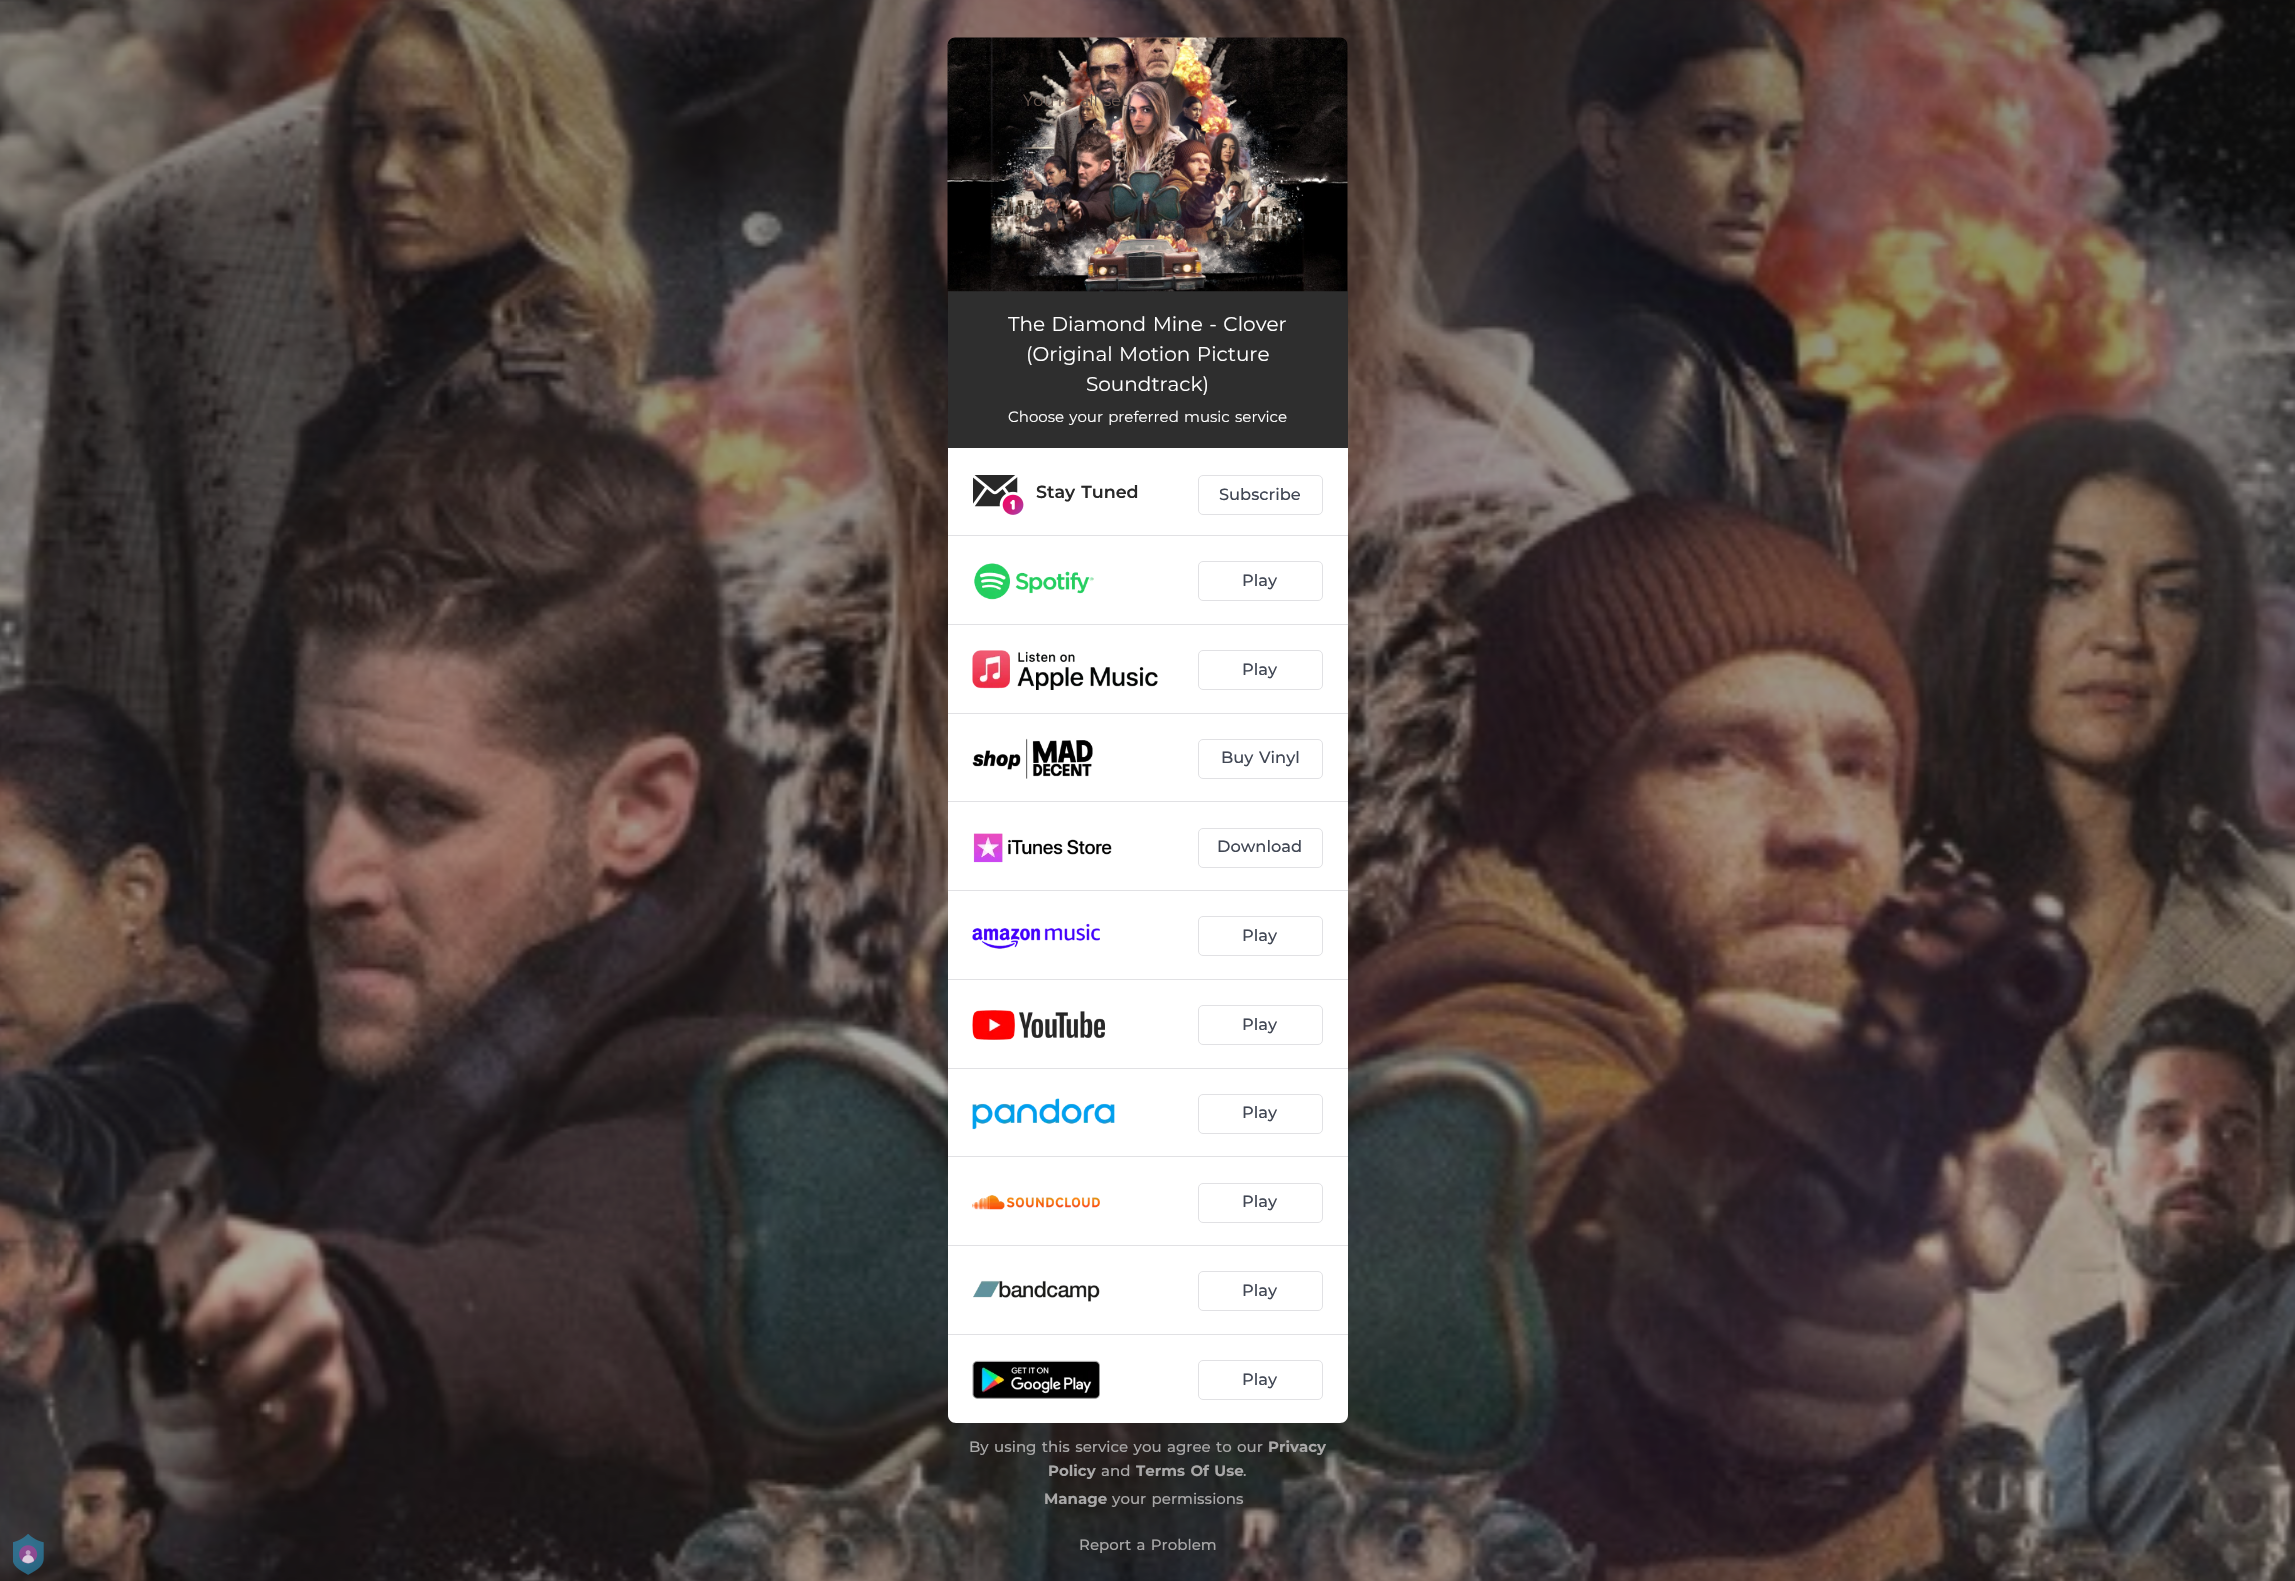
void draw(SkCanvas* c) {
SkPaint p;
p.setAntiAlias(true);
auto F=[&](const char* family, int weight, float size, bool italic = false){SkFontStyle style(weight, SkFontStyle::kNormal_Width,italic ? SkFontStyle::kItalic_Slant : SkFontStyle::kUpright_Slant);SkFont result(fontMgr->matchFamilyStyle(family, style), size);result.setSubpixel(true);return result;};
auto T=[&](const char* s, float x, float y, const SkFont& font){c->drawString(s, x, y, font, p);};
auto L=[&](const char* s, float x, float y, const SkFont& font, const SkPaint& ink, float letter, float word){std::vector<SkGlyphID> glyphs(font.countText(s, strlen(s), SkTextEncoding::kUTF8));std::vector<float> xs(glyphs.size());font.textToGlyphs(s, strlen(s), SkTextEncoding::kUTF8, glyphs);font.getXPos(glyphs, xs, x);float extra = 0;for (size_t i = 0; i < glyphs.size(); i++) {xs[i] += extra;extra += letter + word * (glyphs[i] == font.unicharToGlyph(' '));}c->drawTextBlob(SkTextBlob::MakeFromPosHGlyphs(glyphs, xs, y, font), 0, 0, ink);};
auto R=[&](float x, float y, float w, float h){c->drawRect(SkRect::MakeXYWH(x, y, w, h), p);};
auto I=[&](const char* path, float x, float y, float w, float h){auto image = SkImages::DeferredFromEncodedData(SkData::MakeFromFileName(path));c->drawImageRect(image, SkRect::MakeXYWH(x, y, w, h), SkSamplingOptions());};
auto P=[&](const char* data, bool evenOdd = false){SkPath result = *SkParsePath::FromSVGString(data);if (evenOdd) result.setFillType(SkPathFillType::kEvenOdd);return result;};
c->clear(0xffffffff);
I("2.png",0,0,2295,1581);
I("1.png",13,1534,31,41);
p.setColor(0xff2e2e2e);
R(948,291,400,157);
I("3.png",947,37,401,255);
auto f1 = F("Montserrat",400,16.25);
p.setColor(0xff69574f);
L("You're all set!",1023,106,f1,p,0,1.25);
auto f2 = F("Montserrat",400,20);
p.setColor(0xffffffff);
L("The Diamond Mine - Clover",1008,331,f2,p,0,1.25);
L("(Original Motion Picture",1026,361,f2,p,0,1.25);
T("Soundtrack)",1086,391,f2);
auto f3 = F("Montserrat",400,15);
L("Choose your preferred music service",1008,422,f3,p,0,1.25);
c->drawPath(P("M948 448h400v967c0 4.5-3.5 8-8 8h-384c-4.5 0-8-3.5-8-8z"),p);
p.setColor(0xffe1e1e4);
R(948,535,400,1);
I("4.png",973,475,51,40);
auto f4 = F("Montserrat",600,17.5);
p.setColor(0xff282828);
L("Stay Tuned",1036,498,f4,p,0,1.25);
p.setStroke(true);
p.setStrokeWidth(1);
p.setColor(0xffe1e1e4);
c->drawRoundRect(SkRect::MakeXYWH(1198.5,475.5,124,39),4.5,4.5,p);
auto f5 = F("Montserrat",500,16.25);
p.setStroke(false);
p.setColor(0xff414754);
T("Subscribe",1219,500,f5);
p.setColor(0xffe1e1e4);
R(948,624,400,1);
I("5.png",974,563,120,37);
p.setStroke(true);
c->drawRoundRect(SkRect::MakeXYWH(1198.5,561.5,124,39),4.5,4.5,p);
p.setStroke(false);
p.setColor(0xff414754);
T("Play",1242,586,f5);
p.setColor(0xffe1e1e4);
R(948,713,400,1);
I("6.png",972,650,186,40);
p.setStroke(true);
c->drawRoundRect(SkRect::MakeXYWH(1198.5,650.5,124,39),4.5,4.5,p);
p.setStroke(false);
p.setColor(0xff414754);
T("Play",1242,675,f5);
p.setColor(0xffe1e1e4);
R(948,801,400,1);
I("7.png",972,738,121,41);
p.setStroke(true);
c->drawRoundRect(SkRect::MakeXYWH(1198.5,739.5,124,39),4.5,4.5,p);
p.setStroke(false);
p.setColor(0xff414754);
L("Buy Vinyl",1221,763,f5,p,0,1.25);
p.setColor(0xffe1e1e4);
R(948,890,400,1);
I("8.png",973,833,139,30);
p.setStroke(true);
c->drawRoundRect(SkRect::MakeXYWH(1198.5,828.5,124,39),4.5,4.5,p);
p.setStroke(false);
p.setColor(0xff414754);
T("Download",1217,852,f5);
p.setColor(0xffe1e1e4);
R(948,979,400,1);
I("9.png",972,923,128,26);
p.setStroke(true);
c->drawRoundRect(SkRect::MakeXYWH(1198.5,916.5,124,39),4.5,4.5,p);
p.setStroke(false);
p.setColor(0xff414754);
T("Play",1242,941,f5);
p.setColor(0xffe1e1e4);
R(948,1068,400,1);
I("10.png",972,1010,133,30);
p.setStroke(true);
c->drawRoundRect(SkRect::MakeXYWH(1198.5,1005.5,124,39),4.5,4.5,p);
p.setStroke(false);
p.setColor(0xff414754);
T("Play",1242,1030,f5);
p.setColor(0xffe1e1e4);
R(948,1156,400,1);
I("11.png",972,1098,143,32);
p.setStroke(true);
c->drawRoundRect(SkRect::MakeXYWH(1198.5,1094.5,124,39),4.5,4.5,p);
p.setStroke(false);
p.setColor(0xff414754);
T("Play",1242,1118,f5);
p.setColor(0xffe1e1e4);
R(948,1245,400,1);
I("12.png",972,1195,128,15);
p.setStroke(true);
c->drawRoundRect(SkRect::MakeXYWH(1198.5,1183.5,124,39),4.5,4.5,p);
p.setStroke(false);
p.setColor(0xff414754);
T("Play",1242,1207,f5);
p.setColor(0xffe1e1e4);
R(948,1334,400,1);
I("13.png",973,1280,127,22);
p.setStroke(true);
c->drawRoundRect(SkRect::MakeXYWH(1198.5,1271.5,124,39),4.5,4.5,p);
p.setStroke(false);
p.setColor(0xff414754);
T("Play",1242,1296,f5);
I("14.png",972,1360,128,39);
p.setStroke(true);
p.setColor(0xffe1e1e4);
c->drawRoundRect(SkRect::MakeXYWH(1198.5,1360.5,124,39),4.5,4.5,p);
p.setStroke(false);
p.setColor(0xff414754);
T("Play",1242,1385,f5);
auto f6 = F("Montserrat",500,15);
p.setColor(0xffa9a8a8);
L("By using this service you agree to our",969,1452,f6,p,0,1.25);
auto f7 = F("Montserrat",700,15);
T("Privacy",1268,1452,f7);
T("Policy",1048,1476,f7);
T("and",1101,1476,f6);
L("Terms Of Use",1136,1476,f7,p,0,1.25);
T(".",1243,1476,f6);
T("Manage",1044,1504,f7);
L("your permissions",1112,1504,f6,p,0,1.25);
L("Report a Problem",1079,1550,f6,p,0,1.25);
}
